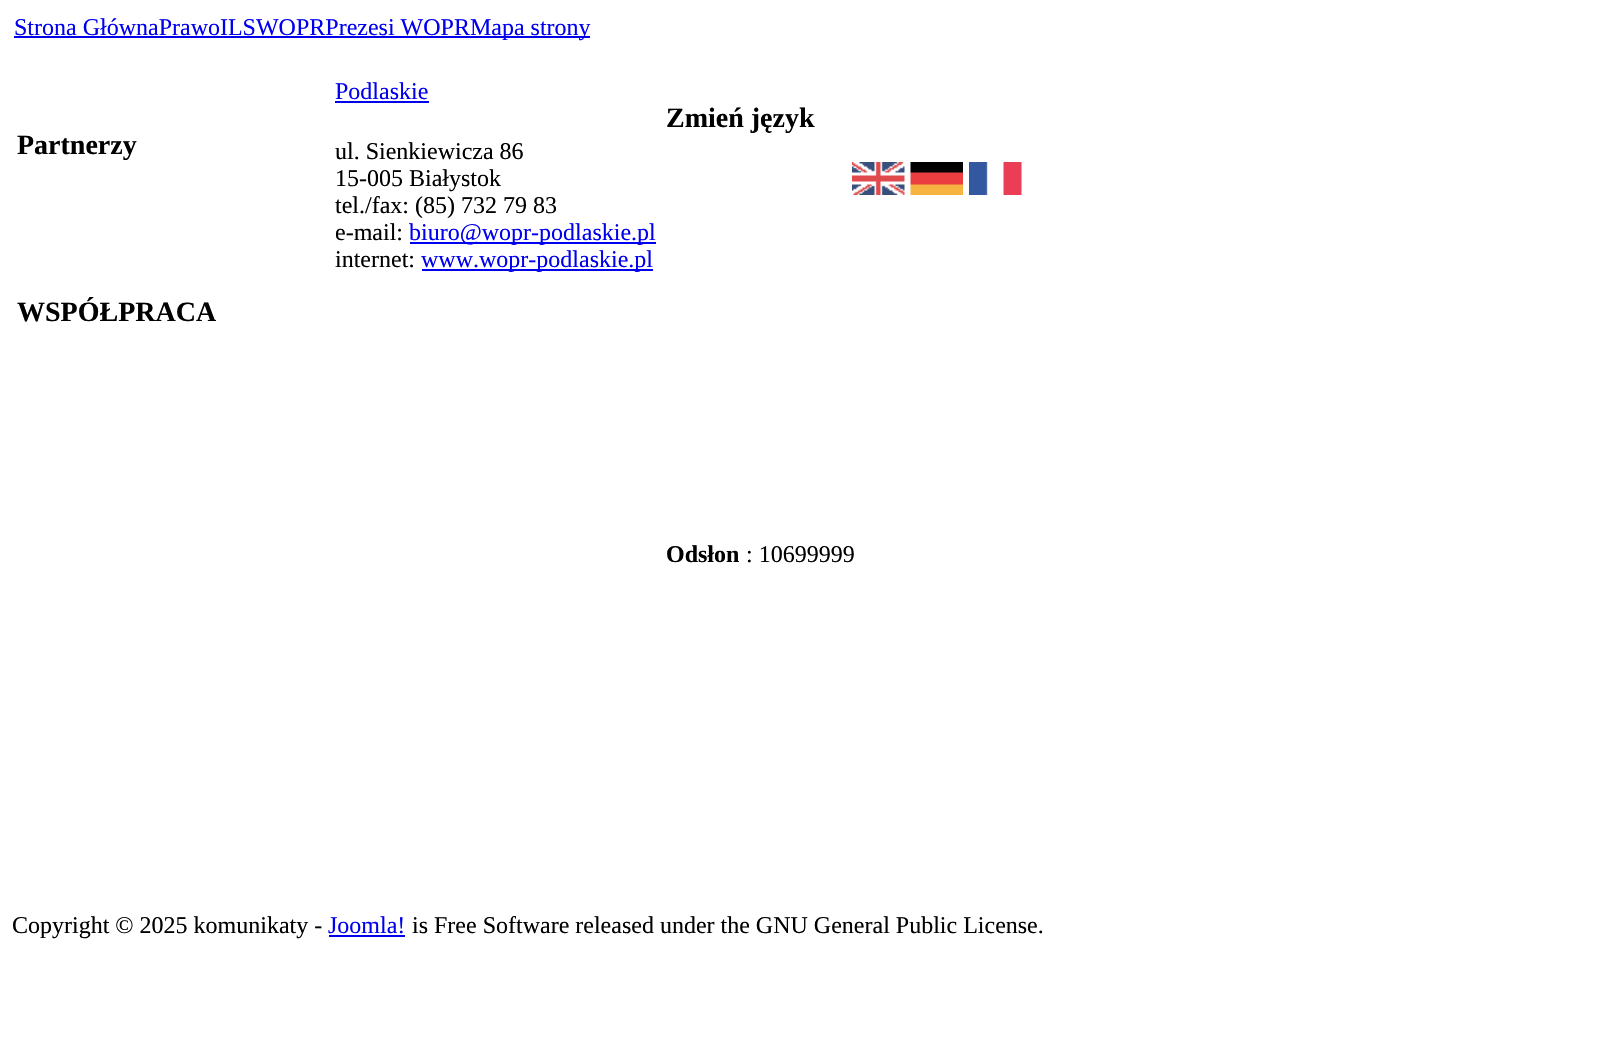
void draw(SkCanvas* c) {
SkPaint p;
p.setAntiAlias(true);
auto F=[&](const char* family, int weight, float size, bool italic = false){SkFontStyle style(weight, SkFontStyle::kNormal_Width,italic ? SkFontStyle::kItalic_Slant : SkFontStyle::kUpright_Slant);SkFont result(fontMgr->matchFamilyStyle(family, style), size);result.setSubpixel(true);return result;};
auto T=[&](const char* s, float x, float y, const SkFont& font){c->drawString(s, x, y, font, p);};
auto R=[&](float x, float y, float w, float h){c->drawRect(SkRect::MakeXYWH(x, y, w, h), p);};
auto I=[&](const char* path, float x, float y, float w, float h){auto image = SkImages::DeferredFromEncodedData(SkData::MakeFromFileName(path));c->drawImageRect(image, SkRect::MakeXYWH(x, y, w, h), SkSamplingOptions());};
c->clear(0xffffffff);
p.setColor(0xff0000ee);
R(14,36,576,2);
auto f1 = F("Liberation Serif",400,24);
T("Strona GłównaPrawoILSWOPRPrezesi WOPRMapa strony",14,35,f1);
auto f2 = F("Liberation Serif",700,28);
p.setColor(0xff000000);
T("Partnerzy",17,154,f2);
T("WSPÓŁPRACA",17,321,f2);
p.setColor(0xff0000ee);
T("Podlaskie",335,99,f1);
R(335,101,94,2);
p.setColor(0xff000000);
T("ul. Sienkiewicza 86",335,159,f1);
T("15-005 Białystok",335,186,f1);
T("tel./fax: (85) 732 79 83",335,213,f1);
T("e-mail:",335,240,f1);
p.setColor(0xff0000ee);
R(410,242,246,2);
T("biuro@wopr-podlaskie.pl",409,240,f1);
p.setColor(0xff000000);
T("internet:",335,267,f1);
p.setColor(0xff0000ee);
R(422,269,231,2);
T("www.wopr-podlaskie.pl",421,267,f1);
p.setColor(0xff000000);
T("Zmień język",666,127,f2);
I("1.png",852,162,53,33);
I("2.png",910,162,53,33);
I("3.png",969,162,53,33);
auto f3 = F("Liberation Serif",700,24);
T("Odsłon",666,562,f3);
T(": 10699999",746,562,f1);
T("Copyright © 2025 komunikaty -",12,933,f1);
p.setColor(0xff0000ee);
T("Joomla!",328,933,f1);
R(329,935,76,2);
p.setColor(0xff000000);
T("is Free Software released under the GNU General Public License.",412,933,f1);
}
